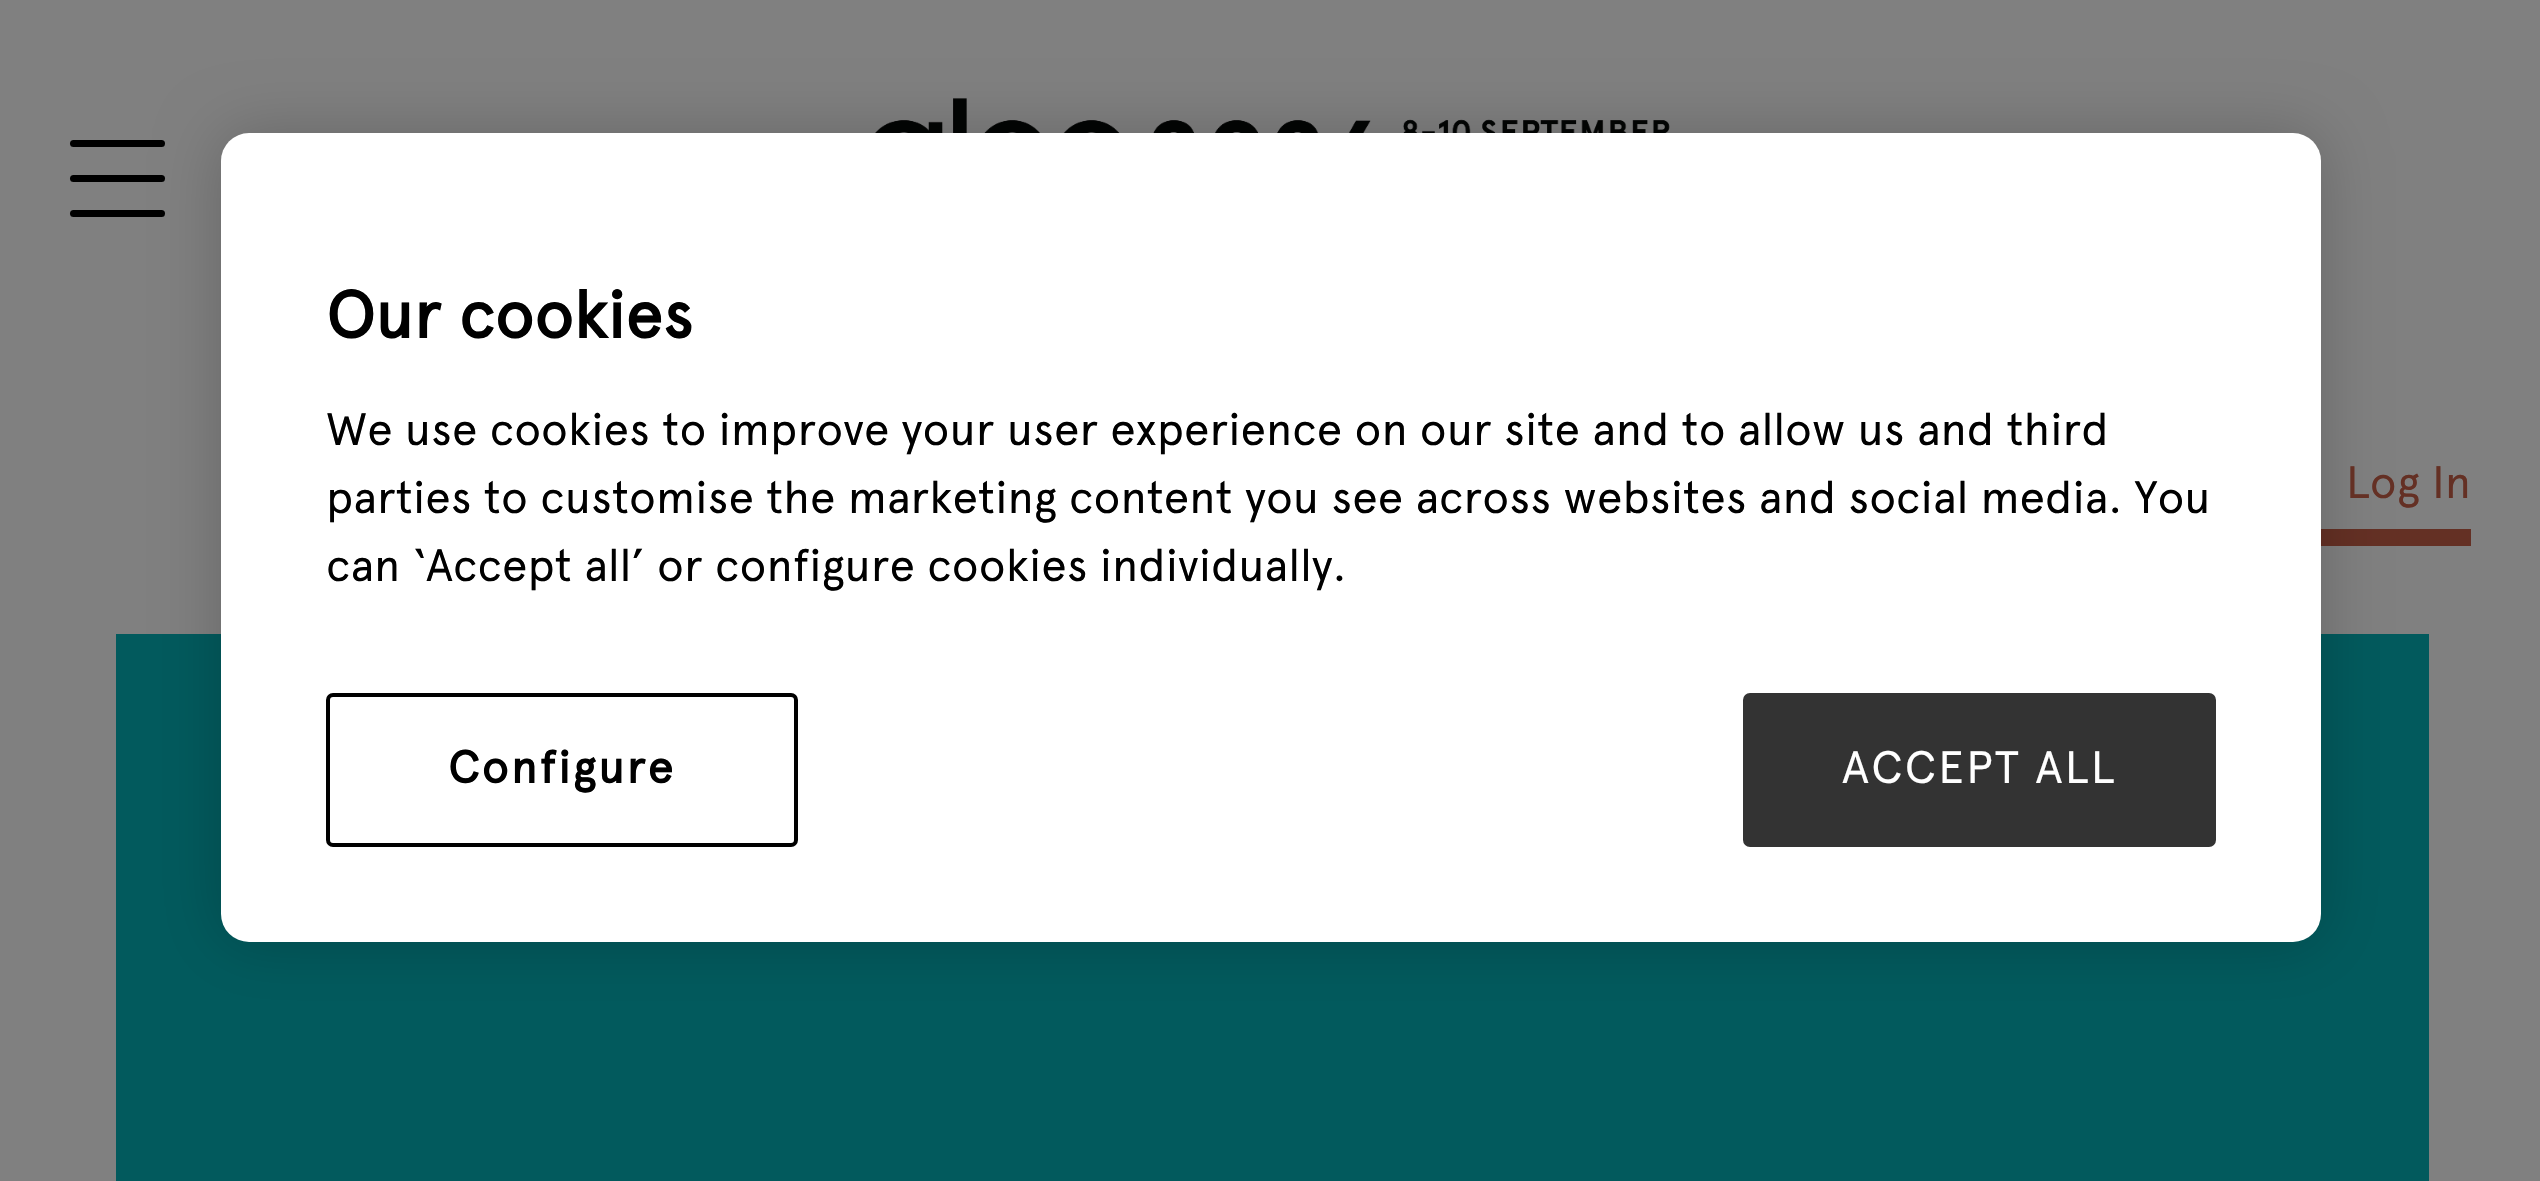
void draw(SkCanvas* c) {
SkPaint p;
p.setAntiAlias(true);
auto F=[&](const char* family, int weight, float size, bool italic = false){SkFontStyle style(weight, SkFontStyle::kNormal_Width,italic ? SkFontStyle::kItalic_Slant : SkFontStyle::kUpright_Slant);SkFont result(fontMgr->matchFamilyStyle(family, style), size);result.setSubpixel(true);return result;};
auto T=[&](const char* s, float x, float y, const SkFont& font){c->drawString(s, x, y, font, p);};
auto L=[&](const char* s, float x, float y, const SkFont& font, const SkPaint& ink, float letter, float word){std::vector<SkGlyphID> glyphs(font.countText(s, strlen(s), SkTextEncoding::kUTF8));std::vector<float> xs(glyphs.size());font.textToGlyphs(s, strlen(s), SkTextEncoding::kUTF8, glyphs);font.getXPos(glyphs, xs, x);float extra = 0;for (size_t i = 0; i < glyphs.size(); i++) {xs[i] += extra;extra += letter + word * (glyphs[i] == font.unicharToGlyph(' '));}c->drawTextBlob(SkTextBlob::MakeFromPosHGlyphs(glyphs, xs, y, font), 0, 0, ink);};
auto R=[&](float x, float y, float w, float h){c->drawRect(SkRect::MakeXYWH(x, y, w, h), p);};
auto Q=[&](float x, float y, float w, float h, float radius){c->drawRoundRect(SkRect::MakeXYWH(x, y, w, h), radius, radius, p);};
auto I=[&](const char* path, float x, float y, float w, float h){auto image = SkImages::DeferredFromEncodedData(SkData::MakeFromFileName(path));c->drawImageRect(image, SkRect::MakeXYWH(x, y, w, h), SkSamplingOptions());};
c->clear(0xff808080);
p.setColor(0xff000000);
Q(70,175,95,7,3.5);
Q(70,140,95,7,3.5);
Q(70,210,95,7,3.5);
I("1.png",875,98,795,35);
p.setColor(0xff643024);
R(2321,529,150,17);
p.setColor(0xff025a5d);
R(116,634,2313,547);
p.setColor(0x33000000);
p.setMaskFilter(SkMaskFilter::MakeBlur(kNormal_SkBlurStyle, 31.5));
c->drawRoundRect(SkRect::MakeXYWH(221,133,2100,809),28,28,p);
p.setMaskFilter(nullptr);
p.setColor(0xffffffff);
Q(221,133,2100,809,28);
auto f1 = F("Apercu",700,66.5);
p.setColor(0xff000000);
T("Our cookies",326,338,f1);
auto f2 = F("Apercu",400,45.5);
T("We use cookies to improve your user experience on our site and to allow us and third",326,445,f2);
T("parties to customise the marketing content you see across websites and social media. You",326,513,f2);
T("can ‘Accept all’ or configure cookies individually.",326,581,f2);
p.setStroke(true);
p.setStrokeWidth(4);
c->drawRoundRect(SkRect::MakeXYWH(328,695,468,150),5,5,p);
auto f3 = F("Apercu",700,45.5);
p.setStroke(false);
L("Configure",448,783,f3,p,2.25,0);
p.setColor(0xff333333);
c->drawRoundRect(SkRect::MakeXYWH(1745,695,469,150),5,5,p);
p.setStroke(true);
c->drawRoundRect(SkRect::MakeXYWH(1745,695,469,150),5,5,p);
p.setStroke(false);
p.setColor(0xffffffff);
L("ACCEPT ALL",1842,783,f2,p,2.25,0);
p.setColor(0xff643024);
T("Log In",2346,498,f2);
}
